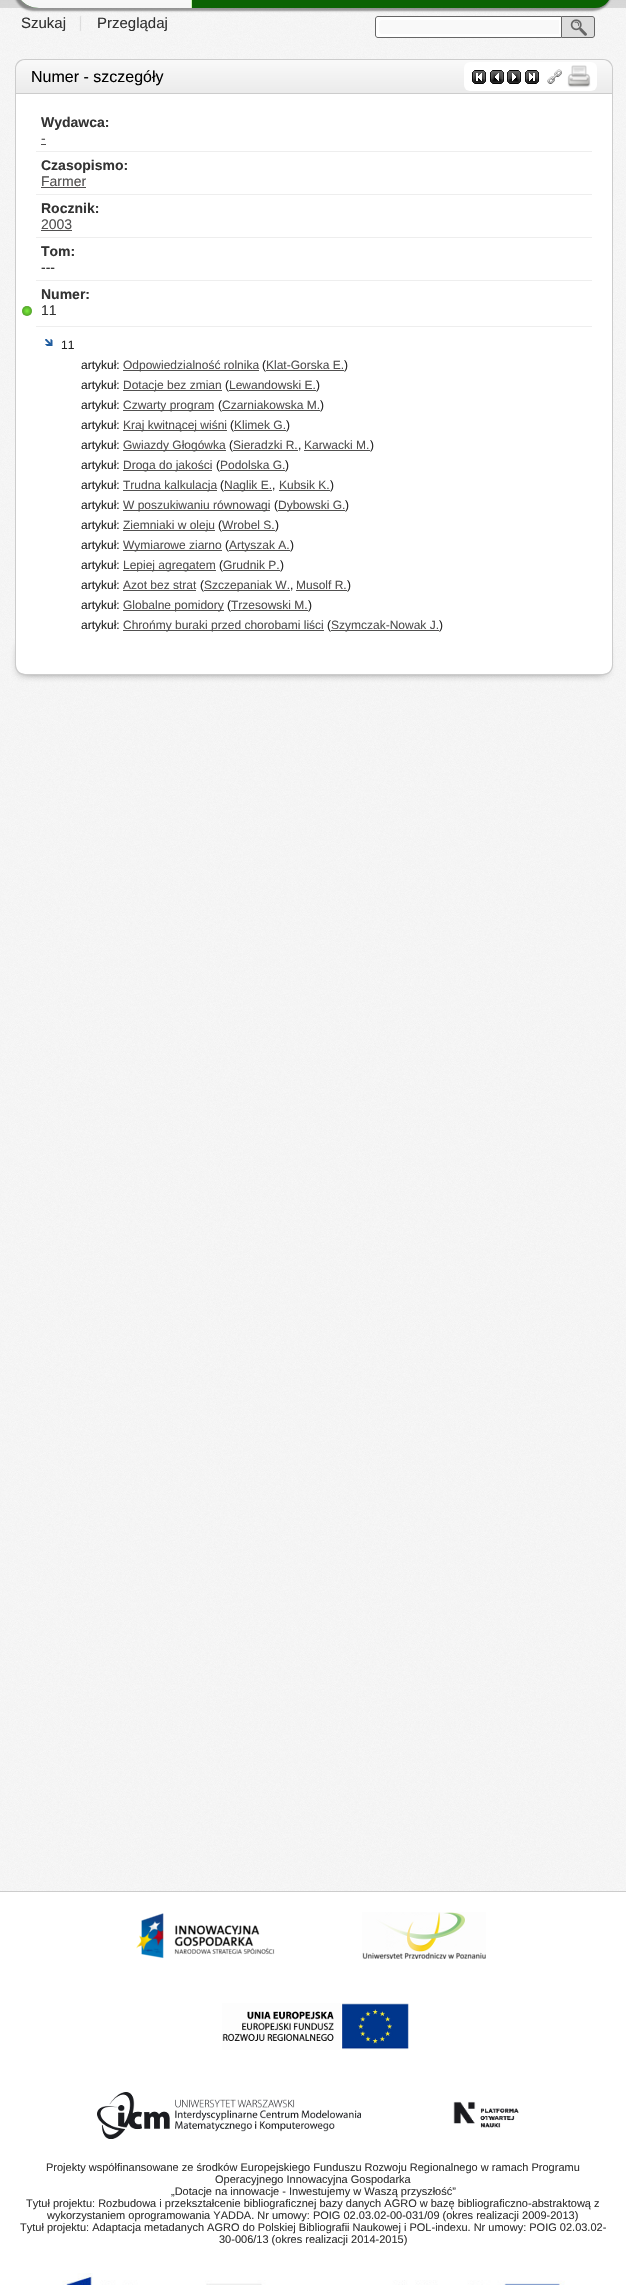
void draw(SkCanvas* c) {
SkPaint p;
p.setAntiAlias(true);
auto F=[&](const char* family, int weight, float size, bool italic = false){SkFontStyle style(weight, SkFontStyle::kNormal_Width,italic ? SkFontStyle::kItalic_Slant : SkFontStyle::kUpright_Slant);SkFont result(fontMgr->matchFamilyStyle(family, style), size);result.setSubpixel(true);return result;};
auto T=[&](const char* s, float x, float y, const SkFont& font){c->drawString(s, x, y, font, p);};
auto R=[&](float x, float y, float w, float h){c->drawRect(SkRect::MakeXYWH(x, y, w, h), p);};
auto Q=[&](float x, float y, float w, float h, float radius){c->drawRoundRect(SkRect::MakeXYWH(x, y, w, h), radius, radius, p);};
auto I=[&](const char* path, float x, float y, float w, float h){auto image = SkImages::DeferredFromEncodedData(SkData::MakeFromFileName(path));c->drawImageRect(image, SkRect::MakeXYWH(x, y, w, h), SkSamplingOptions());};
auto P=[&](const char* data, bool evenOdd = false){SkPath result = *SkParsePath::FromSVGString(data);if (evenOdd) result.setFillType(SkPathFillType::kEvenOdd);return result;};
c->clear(0xffffffff);
I("1.png",0,0,626,1891);
I("2.png",0,8,626,31);
p.setColor(0x80323232);
p.setMaskFilter(SkMaskFilter::MakeBlur(kNormal_SkBlurStyle, 1));
c->drawRoundRect(SkRect::MakeXYWH(14,-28,598,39),25,25,p);
p.setMaskFilter(nullptr);
c->save();
c->clipPath(P("M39-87h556c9 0 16 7 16 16v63c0 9-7 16-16 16h-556c-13.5 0-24-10.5-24-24v-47c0-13.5 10.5-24 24-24z"),true);
p.setMaskFilter(SkMaskFilter::MakeBlur(kNormal_SkBlurStyle, 1));
c->drawRoundRect(SkRect::MakeXYWH(14,-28,598,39),25,25,p);
p.setMaskFilter(nullptr);
c->restore();
p.setColor(0xff0b6303);
c->drawPath(P("M39-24h556c9 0 16 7 16 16c0 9-7 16-16 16h-556c-13.5 0-24-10.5-24-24v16c0-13.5 10.5-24 24-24z"),p);
{
const SkColor colors[] = {0xffffffff,0xfff6f6f6};
const float stops[] = {0,1};
const SkPoint ends[] = {{103,-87}, {103,8}};
p.setShader(SkGradientShader::MakeLinear(ends, colors, stops, 2, SkTileMode::kClamp));
p.setAlpha(255);
}
c->drawPath(P("M39-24h129c13.5 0 24 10.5 24 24v8h-153c-13.5 0-24-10.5-24-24v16c0-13.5 10.5-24 24-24z"),p);
p.setShader(nullptr);
p.setColor(0xffcbf6b3);
R(191,0,1,8);
auto f1 = F("Liberation Sans",400,15);
p.setColor(0xff333333);
T("Szukaj",21,28,f1);
p.setColor(0x33646464);
p.setMaskFilter(SkMaskFilter::MakeBlur(kNormal_SkBlurStyle, .5));
c->drawRect(SkRect::MakeXYWH(80,16,1,15),p);
p.setMaskFilter(nullptr);
p.setColor(0xff333333);
T("Przeglądaj",97,28,f1);
p.setColor(0xffffffff);
c->drawPath(P("M378 16.5h184.5v21h-184.5c-1.5 0-2.5-1-2.5-2.5v-16c0-1.5 1-2.5 2.5-2.5z"),p);
p.setStroke(true);
p.setStrokeWidth(1);
p.setColor(0xff666666);
c->drawPath(P("M378 16.5h184.5v21h-184.5c-1.5 0-2.5-1-2.5-2.5v-16c0-1.5 1-2.5 2.5-2.5z"),p);
p.setStroke(false);
p.setColor(0xfff9f9f9);
c->drawPath(P("M382 20h177v14h-177c-1.5 0-3-1.5-3-3v-8c0-1.5 1.5-3 3-3z"),p);
p.setColor(0xffdddddd);
c->drawPath(P("M561 16h31c1.5 0 3 1.5 3 3v16c0 1.5-1.5 3-3 3h-31z"),p);
I("3.png",570,19,17,17);
p.setStroke(true);
p.setColor(0xff666666);
c->drawPath(P("M561.5 16.5h30.5c1.5 0 2.5 1 2.5 2.5v16c0 1.5-1 2.5-2.5 2.5h-30.5z"),p);
p.setStroke(false);
p.setColor(0xffcccccc);
c->drawPath(P("M25 59h578c6 0 10 4 10 10v25h-598v-25c0-6 4-10 10-10zm0 1h578c5 0 9 4 9 9v25h-596v-25c0-5 4-9 9-9z",true),p);
{
const SkColor colors[] = {0xfff9f9f9,0xffebebeb};
const float stops[] = {0,1};
const SkPoint ends[] = {{314,60}, {314,93}};
p.setShader(SkGradientShader::MakeLinear(ends, colors, stops, 2, SkTileMode::kClamp));
p.setAlpha(255);
}
c->drawPath(P("M26 60h576c5.5 0 10 4.5 10 10v23h-596v-23c0-5.5 4.5-10 10-10z"),p);
p.setShader(nullptr);
p.setColor(0xffcccccc);
R(16,93,596,1);
auto f2 = F("Liberation Sans",400,16);
p.setColor(0xff000000);
T("Numer - szczegóły",31,82,f2);
p.setColor(0xffffffff);
Q(464,62,133,29,6);
I("4.png",472,70,14,14);
I("5.png",490,70,14,14);
I("6.png",507,70,14,14);
I("7.png",525,70,14,14);
I("8.png",547,69,15,15);
I("9.png",567,65,24,23);
p.setColor(0xcc000000);
p.setMaskFilter(SkMaskFilter::MakeBlur(kNormal_SkBlurStyle, 5));
c->drawRect(SkRect::MakeXYWH(21,647,584,25),p);
p.setMaskFilter(nullptr);
p.setColor(0xffffffff);
c->drawPath(P("M16 94h596v571c0 5-4 9-9 9h-578c-5 0-9-4-9-9z"),p);
p.setColor(0xffcccccc);
c->drawPath(P("M15 94h598v571c0 6-4 10-10 10h-578c-6 0-10-4-10-10zm1 0h596v571c0 5-4 9-9 9h-578c-5 0-9-4-9-9z",true),p);
p.setColor(0xffeeeeee);
R(36,151,556,1);
auto f3 = F("Liberation Sans",700,14);
p.setColor(0xff333333);
T("Wydawca:",41,127,f3);
auto f4 = F("Liberation Sans",400,14);
p.setColor(0xff515050);
T("-",41,143,f4);
R(41,144,5,1);
p.setColor(0xffeeeeee);
R(36,194,556,1);
p.setColor(0xff333333);
T("Czasopismo:",41,170,f3);
p.setColor(0xff515050);
T("Farmer",41,186,f4);
R(41,187,45,1);
p.setColor(0xffeeeeee);
R(36,237,556,1);
p.setColor(0xff333333);
T("Rocznik:",41,213,f3);
p.setColor(0xff515050);
T("2003",41,229,f4);
R(41,230,31,1);
p.setColor(0xffeeeeee);
R(36,280,556,1);
p.setColor(0xff333333);
T("Tom:",41,256,f3);
p.setColor(0xff222222);
T("---",41,272,f4);
p.setColor(0xffeeeeee);
R(36,326,556,1);
p.setColor(0xff333333);
T("Numer:",41,299,f3);
{
const SkColor colors[] = {0xff7aef3c,0xff55a72a,0xff329000,0xff4fb215};
const float stops[] = {.01,.66,.69,.9};
p.setShader(SkGradientShader::MakeRadial({27,311}, 7.1, colors, stops, 4, SkTileMode::kClamp));
p.setAlpha(255);
}
c->drawCircle(27,311,5,p);
p.setShader(nullptr);
p.setColor(0xff333333);
T("11",41,315,f4);
I("10.png",45,339,8,7);
auto f5 = F("Liberation Sans",400,12);
p.setColor(0xff222222);
T("11",61,349,f5);
T("artykuł:",81,369,f5);
p.setColor(0xff515050);
R(123,370,136,1);
T("Odpowiedzialność rolnika",123,369,f5);
p.setColor(0xff222222);
T("(",262,369,f5);
p.setColor(0xff515050);
R(266,370,78,1);
T("Klat-Gorska E.",266,369,f5);
p.setColor(0xff222222);
T(")",344,369,f5);
T("artykuł:",81,389,f5);
p.setColor(0xff515050);
R(123,390,99,1);
T("Dotacje bez zmian",123,389,f5);
p.setColor(0xff222222);
T("(",225,389,f5);
p.setColor(0xff515050);
R(229,390,87,1);
T("Lewandowski E.",229,389,f5);
p.setColor(0xff222222);
T(")",316,389,f5);
T("artykuł:",81,409,f5);
p.setColor(0xff515050);
R(123,410,91,1);
T("Czwarty program",123,409,f5);
p.setColor(0xff222222);
T("(",218,409,f5);
p.setColor(0xff515050);
R(222,410,98,1);
T("Czarniakowska M.",222,409,f5);
p.setColor(0xff222222);
T(")",320,409,f5);
T("artykuł:",81,429,f5);
p.setColor(0xff515050);
R(123,430,104,1);
T("Kraj kwitnącej wiśni",123,429,f5);
p.setColor(0xff222222);
T("(",230,429,f5);
p.setColor(0xff515050);
R(234,430,52,1);
T("Klimek G.",234,429,f5);
p.setColor(0xff222222);
T(")",286,429,f5);
T("artykuł:",81,449,f5);
p.setColor(0xff515050);
R(123,450,103,1);
T("Gwiazdy Głogówka",123,449,f5);
p.setColor(0xff222222);
T("(",229,449,f5);
p.setColor(0xff515050);
T("Sieradzki R.",233,449,f5);
p.setColor(0xff222222);
T(",",298,449,f5);
p.setColor(0xff515050);
R(233,450,65,1);
R(304,450,66,1);
T("Karwacki M.",304,449,f5);
p.setColor(0xff222222);
T(")",370,449,f5);
T("artykuł:",81,469,f5);
p.setColor(0xff515050);
R(123,470,89,1);
T("Droga do jakości",123,469,f5);
p.setColor(0xff222222);
T("(",216,469,f5);
p.setColor(0xff515050);
R(220,470,65,1);
T("Podolska G.",220,469,f5);
p.setColor(0xff222222);
T(")",285,469,f5);
T("artykuł:",81,489,f5);
p.setColor(0xff515050);
R(123,490,94,1);
T("Trudna kalkulacja",123,489,f5);
p.setColor(0xff222222);
T("(",220,489,f5);
p.setColor(0xff515050);
R(224,490,48,1);
T("Naglik E.",224,489,f5);
p.setColor(0xff222222);
T(",",272,489,f5);
p.setColor(0xff515050);
R(279,490,51,1);
T("Kubsik K.",279,489,f5);
p.setColor(0xff222222);
T(")",330,489,f5);
T("artykuł:",81,509,f5);
p.setColor(0xff515050);
R(123,510,147,1);
T("W poszukiwaniu równowagi",123,509,f5);
p.setColor(0xff222222);
T("(",274,509,f5);
p.setColor(0xff515050);
R(278,510,67,1);
T("Dybowski G.",278,509,f5);
p.setColor(0xff222222);
T(")",345,509,f5);
T("artykuł:",81,529,f5);
p.setColor(0xff515050);
R(123,530,92,1);
T("Ziemniaki w oleju",123,529,f5);
p.setColor(0xff222222);
T("(",218,529,f5);
p.setColor(0xff515050);
R(222,530,53,1);
T("Wrobel S.",222,529,f5);
p.setColor(0xff222222);
T(")",275,529,f5);
T("artykuł:",81,549,f5);
p.setColor(0xff515050);
R(123,550,99,1);
T("Wymiarowe ziarno",123,549,f5);
p.setColor(0xff222222);
T("(",225,549,f5);
p.setColor(0xff515050);
R(229,550,61,1);
T("Artyszak A.",229,549,f5);
p.setColor(0xff222222);
T(")",290,549,f5);
T("artykuł:",81,569,f5);
p.setColor(0xff515050);
R(123,570,93,1);
T("Lepiej agregatem",123,569,f5);
p.setColor(0xff222222);
T("(",219,569,f5);
p.setColor(0xff515050);
R(223,570,57,1);
T("Grudnik P.",223,569,f5);
p.setColor(0xff222222);
T(")",280,569,f5);
T("artykuł:",81,589,f5);
p.setColor(0xff515050);
T("Azot bez strat",123,589,f5);
R(123,590,73,1);
p.setColor(0xff222222);
T("(",200,589,f5);
p.setColor(0xff515050);
R(204,590,86,1);
T("Szczepaniak W.",204,589,f5);
p.setColor(0xff222222);
T(",",290,589,f5);
p.setColor(0xff515050);
R(296,590,51,1);
T("Musolf R.",296,589,f5);
p.setColor(0xff222222);
T(")",347,589,f5);
T("artykuł:",81,609,f5);
p.setColor(0xff515050);
R(123,610,101,1);
T("Globalne pomidory",123,609,f5);
p.setColor(0xff222222);
T("(",227,609,f5);
p.setColor(0xff515050);
R(231,610,77,1);
T("Trzesowski M.",231,609,f5);
p.setColor(0xff222222);
T(")",308,609,f5);
T("artykuł:",81,629,f5);
p.setColor(0xff515050);
R(123,630,201,1);
T("Chrońmy buraki przed chorobami liści",123,629,f5);
p.setColor(0xff222222);
T("(",327,629,f5);
p.setColor(0xff515050);
R(331,630,108,1);
T("Szymczak-Nowak J.",331,629,f5);
p.setColor(0xff222222);
T(")",439,629,f5);
p.setColor(0xffcccccc);
R(0,1891,626,1);
I("11.png",136,1913,139,46);
I("12.png",362,1912,124,47);
I("13.png",222,2003,187,47);
I("14.png",97,2092,264,47);
I("15.png",453,2101,66,27);
auto f6 = F("Liberation Sans",400,11);
p.setColor(0xff333333);
T("Projekty współfinansowane ze środków Europejskiego Funduszu Rozwoju Regionalnego w ramach Programu",46,2171,f6);
T("Operacyjnego Innowacyjna Gospodarka",215,2183,f6);
T("„Dotacje na innowacje - Inwestujemy w Waszą przyszłość”",171,2195,f6);
T("Tytuł projektu: Rozbudowa i przekształcenie bibliograficznej bazy danych AGRO w bazę bibliograficzno-abstraktową z",26,2207,f6);
T("wykorzystaniem oprogramowania YADDA. Nr umowy: POIG 02.03.02-00-031/09 (okres realizacji 2009-2013)",47,2219,f6);
T("Tytuł projektu: Adaptacja metadanych AGRO do Polskiej Bibliografii Naukowej i POL-indexu. Nr umowy: POIG 02.03.02-",20,2231,f6);
T("30-006/13 (okres realizacji 2014-2015)",219,2243,f6);
I("16.png",62,2273,503,12);
}
